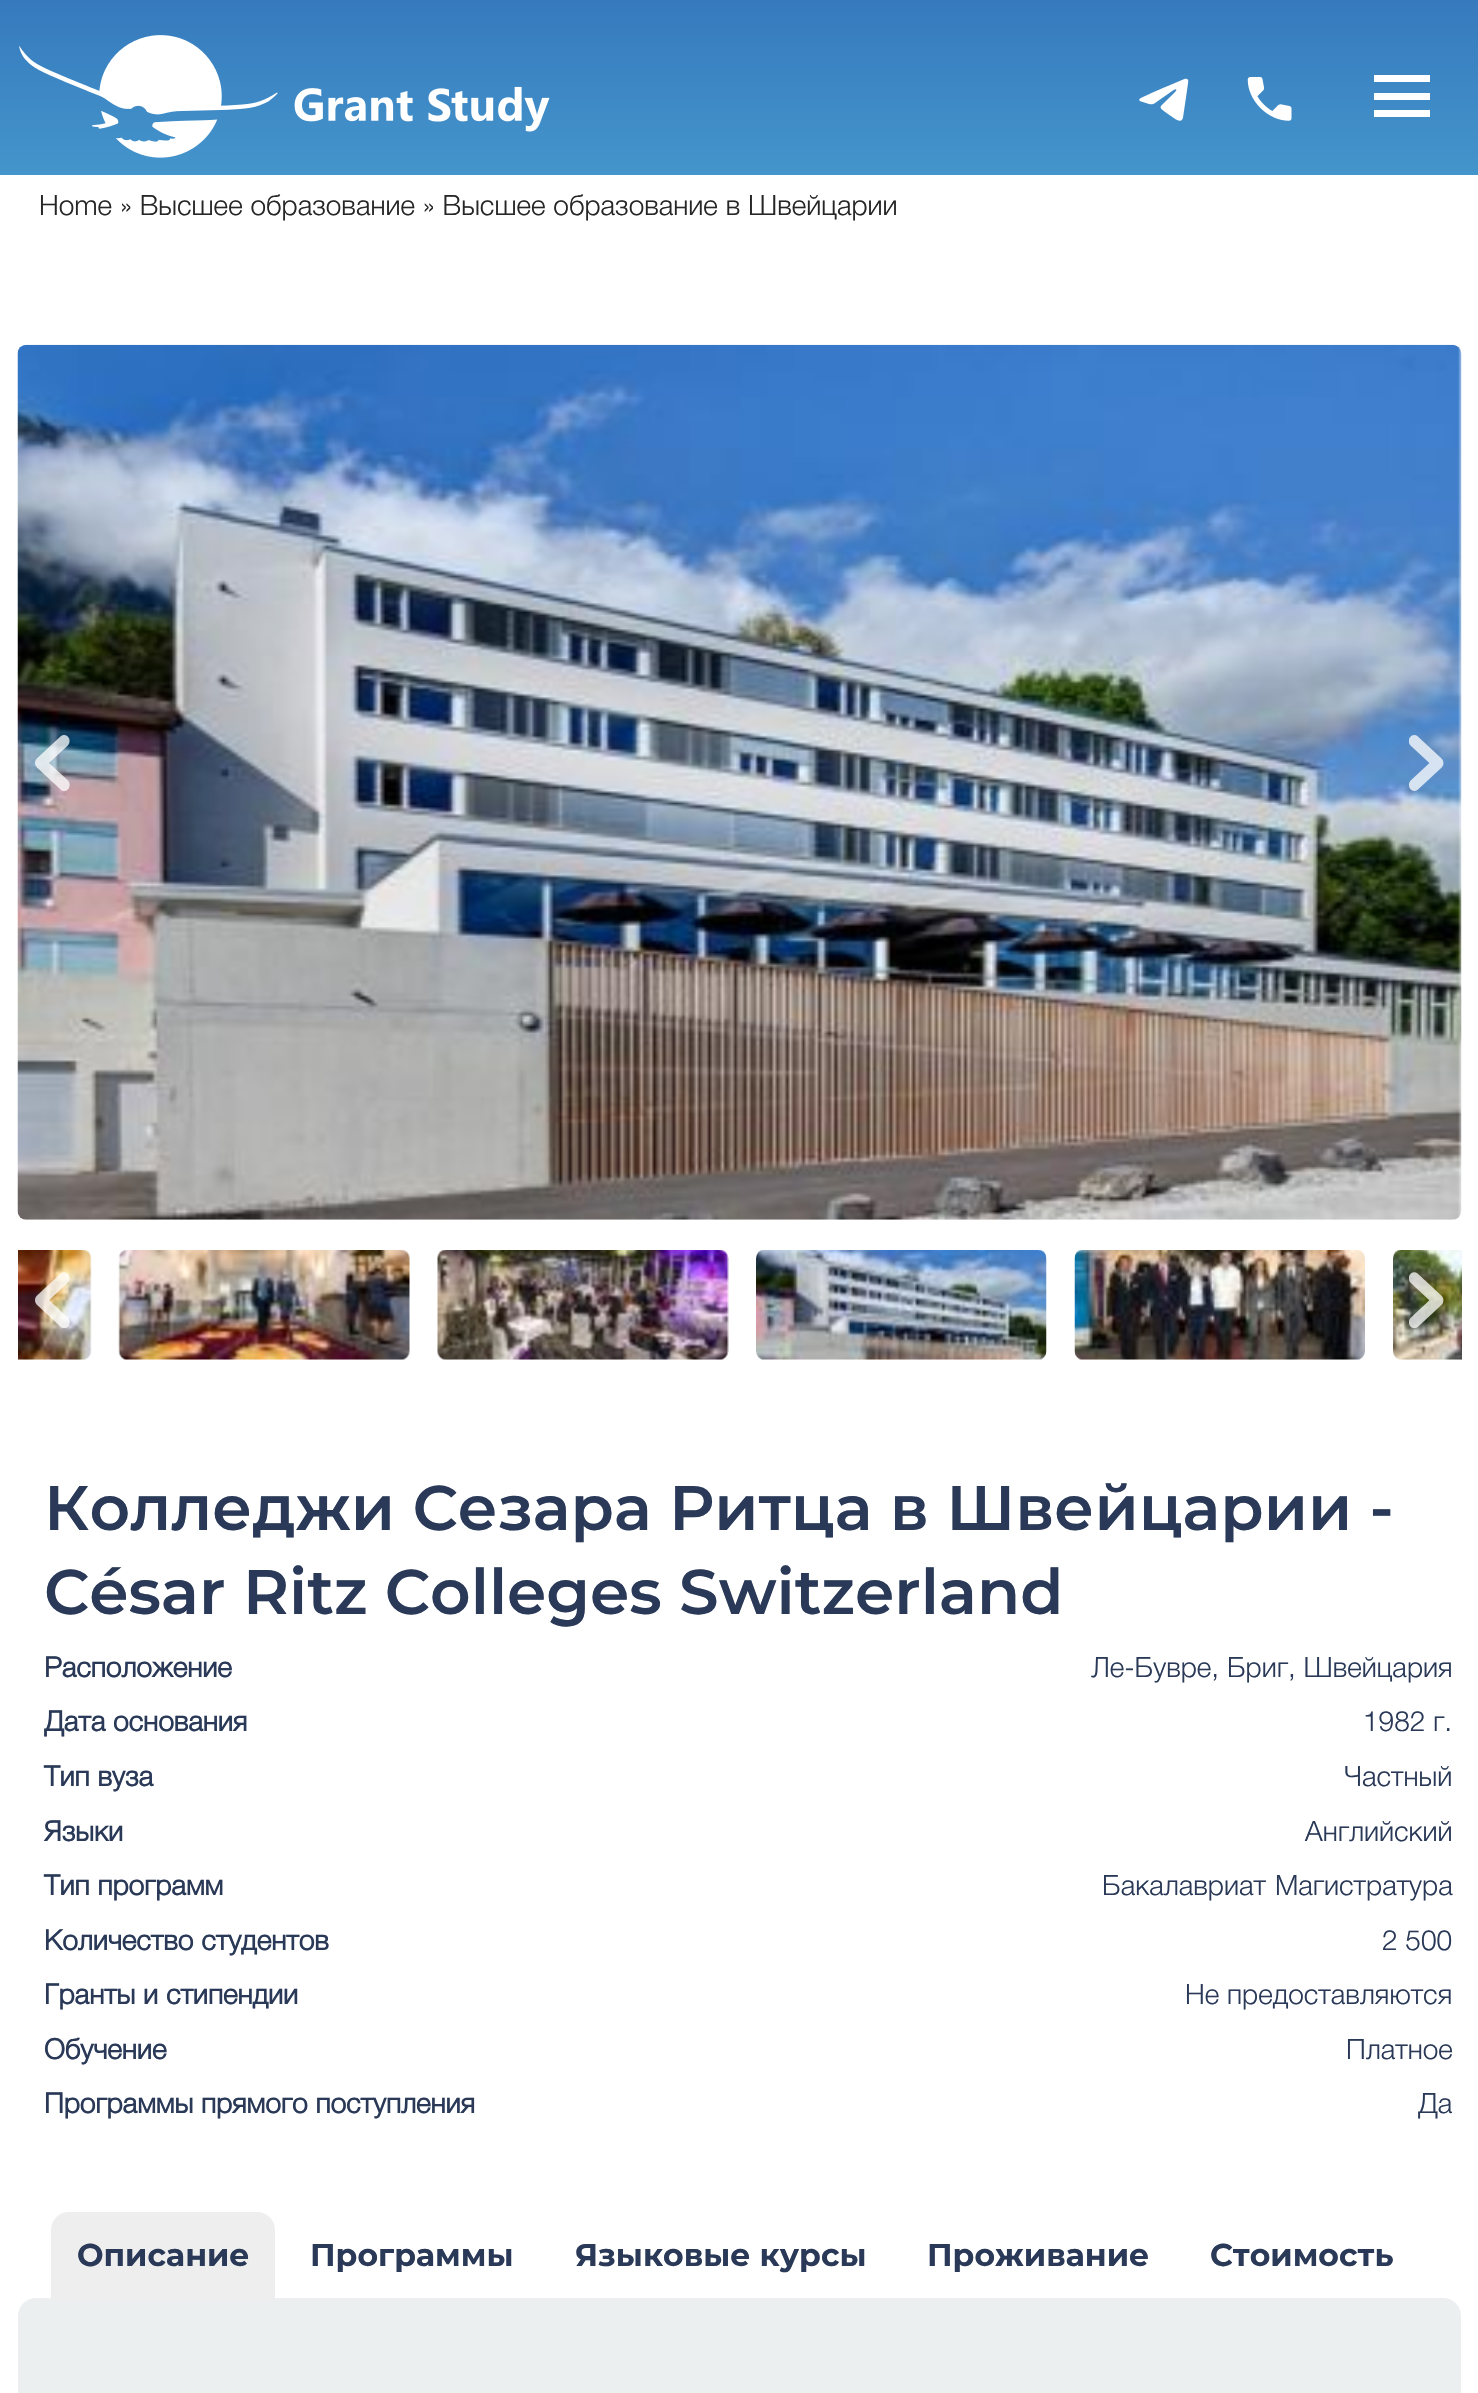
void draw(SkCanvas* c) {
SkPaint p;
p.setAntiAlias(true);
auto F=[&](const char* family, int weight, float size, bool italic = false){SkFontStyle style(weight, SkFontStyle::kNormal_Width,italic ? SkFontStyle::kItalic_Slant : SkFontStyle::kUpright_Slant);SkFont result(fontMgr->matchFamilyStyle(family, style), size);result.setSubpixel(true);return result;};
auto T=[&](const char* s, float x, float y, const SkFont& font){c->drawString(s, x, y, font, p);};
auto R=[&](float x, float y, float w, float h){c->drawRect(SkRect::MakeXYWH(x, y, w, h), p);};
auto Q=[&](float x, float y, float w, float h, float radius){c->drawRoundRect(SkRect::MakeXYWH(x, y, w, h), radius, radius, p);};
auto I=[&](const char* path, float x, float y, float w, float h){auto image = SkImages::DeferredFromEncodedData(SkData::MakeFromFileName(path));c->drawImageRect(image, SkRect::MakeXYWH(x, y, w, h), SkSamplingOptions());};
auto P=[&](const char* data, bool evenOdd = false){SkPath result = *SkParsePath::FromSVGString(data);if (evenOdd) result.setFillType(SkPathFillType::kEvenOdd);return result;};
c->clear(0xffffffff);
{
const SkColor colors[] = {0xff367abd,0xff4495cc};
const float stops[] = {0,1};
const SkPoint ends[] = {{739,0}, {739,175}};
p.setShader(SkGradientShader::MakeLinear(ends, colors, stops, 2, SkTileMode::kClamp));
p.setAlpha(255);
}
R(0,0,1478,175);
I("1.png",19,35,531,123);
I("2.png",1139,78,50,43);
I("3.png",1247,77,45,44);
p.setShader(nullptr);
p.setColor(0xffffffff);
R(1374,75,56,7);
R(1374,93,56,7);
R(1374,110,56,7);
auto f1 = F("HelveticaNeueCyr",300,28);
p.setColor(0xff262626);
T("Home » Высшее образование » Высшее образование в Швейцарии",39,215,f1);
I("4.png",17,344,1445,876);
I("5.png",35,735,35,56);
I("6.png",1409,735,35,56);
I("7.png",18,1250,74,110);
I("8.png",118,1250,292,110);
I("9.png",437,1250,292,110);
I("10.png",756,1250,291,110);
I("11.png",1074,1250,291,110);
I("12.png",1393,1250,69,110);
I("13.png",35,1272,35,56);
I("14.png",1409,1272,35,56);
auto f2 = F("Montserrat",600,63);
p.setColor(0xff293957);
T("Колледжи Сезара Ритца в Швейцарии -",44,1530,f2);
T("César Ritz Colleges Switzerland",44,1614,f2);
auto f3 = F("HelveticaNeueCyr",700,28);
T("Расположение",44,1677,f3);
T("Ле-Бувре, Бриг, Швейцария",1091,1677,f1);
T("Дата основания",44,1731,f3);
T("1982 г.",1363,1731,f1);
T("Тип вуза",44,1786,f3);
T("Частный",1344,1786,f1);
T("Языки",44,1841,f3);
T("Английский",1305,1841,f1);
T("Тип программ",44,1895,f3);
T("Бакалавриат",1102,1895,f1);
T("Магистратура",1275,1895,f1);
T("Количество студентов",44,1950,f3);
T("2 500",1382,1950,f1);
T("Гранты и стипендии",44,2004,f3);
T("Не предоставляются",1185,2004,f1);
T("Обучение",44,2059,f3);
T("Платное",1346,2059,f1);
T("Программы прямого поступления",44,2113,f3);
T("Да",1418,2113,f1);
{
const SkColor colors[] = {0xffeceff0,0xffd6e7ed};
const float stops[] = {0,1};
const SkPoint ends[] = {{739,2298}, {739,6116}};
p.setShader(SkGradientShader::MakeLinear(ends, colors, stops, 2, SkTileMode::kClamp));
p.setAlpha(255);
}
Q(18,2298,1443,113,18);
p.setShader(nullptr);
p.setColor(0xffeeeeee);
c->drawPath(P("M69 2212h188c10 0 18 8 18 18v71h-224v-71c0-10 8-18 18-18z"),p);
auto f4 = F("Montserrat",700,31.5);
p.setColor(0xff293957);
T("Описание",77,2266,f4);
T("Программы",310,2266,f4);
T("Языковые курсы",575,2266,f4);
T("Проживание",927,2266,f4);
T("Стоимость",1210,2266,f4);
}
